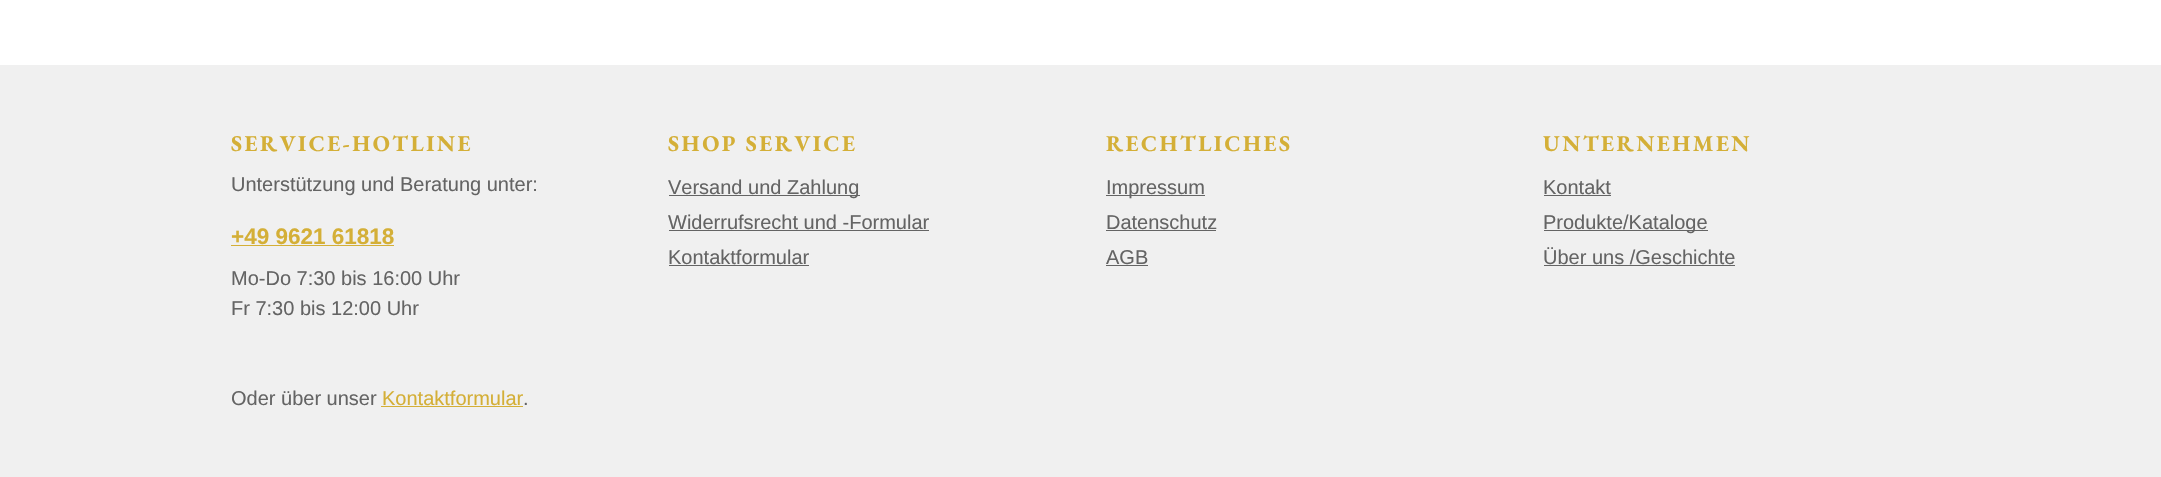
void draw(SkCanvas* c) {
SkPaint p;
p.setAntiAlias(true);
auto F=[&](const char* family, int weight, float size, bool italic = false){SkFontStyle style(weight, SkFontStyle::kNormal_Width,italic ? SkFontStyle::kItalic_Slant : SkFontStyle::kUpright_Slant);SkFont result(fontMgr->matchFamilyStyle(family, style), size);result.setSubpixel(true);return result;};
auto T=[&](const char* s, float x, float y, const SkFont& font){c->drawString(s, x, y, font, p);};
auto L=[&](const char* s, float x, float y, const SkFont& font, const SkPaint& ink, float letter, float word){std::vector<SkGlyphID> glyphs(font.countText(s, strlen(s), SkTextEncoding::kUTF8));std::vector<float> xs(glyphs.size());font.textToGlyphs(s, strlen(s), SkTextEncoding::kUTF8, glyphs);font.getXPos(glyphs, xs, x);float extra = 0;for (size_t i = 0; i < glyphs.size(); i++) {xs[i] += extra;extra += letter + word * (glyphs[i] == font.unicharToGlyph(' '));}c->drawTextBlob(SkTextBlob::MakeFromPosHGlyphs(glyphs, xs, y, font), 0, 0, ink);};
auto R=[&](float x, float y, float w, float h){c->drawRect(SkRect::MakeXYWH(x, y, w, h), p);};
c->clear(0xffffffff);
p.setColor(0xfff0f0f0);
R(0,65,2161,412);
auto f1 = F("EB Garamond",700,22.5);
p.setColor(0xffd4af37);
L("SERVICE-HOTLINE",231,151,f1,p,2.5,0);
auto f2 = F("Liberation Sans",400,20);
p.setColor(0xff646464);
T("Unterstützung und Beratung unter:",231,191,f2);
auto f3 = F("Liberation Sans",700,22.5);
p.setColor(0xffd4af37);
T("+49 9621 61818",231,244,f3);
R(231,245,163,1);
p.setColor(0xff646464);
T("Mo-Do 7:30 bis 16:00 Uhr",231,285,f2);
T("Fr 7:30 bis 12:00 Uhr",231,315,f2);
T("Oder über unser",231,405,f2);
p.setColor(0xffd4af37);
T("Kontaktformular",382,405,f2);
R(381,406,142,1);
p.setColor(0xff646464);
T(".",523,405,f2);
p.setColor(0xffd4af37);
L("SHOP SERVICE",668,151,f1,p,2.5,0);
p.setColor(0xff646464);
R(669,195,191,1);
T("Versand und Zahlung",668,194,f2);
T("Widerrufsrecht und -Formular",668,229,f2);
R(669,230,260,1);
T("Kontaktformular",668,264,f2);
R(669,265,140,1);
p.setColor(0xffd4af37);
L("RECHTLICHES",1106,151,f1,p,2.5,0);
p.setColor(0xff646464);
R(1106,195,99,1);
T("Impressum",1106,194,f2);
T("Datenschutz",1106,229,f2);
R(1106,230,110,1);
T("AGB",1106,264,f2);
R(1106,265,42,1);
p.setColor(0xffd4af37);
L("UNTERNEHMEN",1543,151,f1,p,2.5,0);
p.setColor(0xff646464);
T("Kontakt",1543,194,f2);
R(1544,195,67,1);
R(1544,230,164,1);
T("Produkte/Kataloge",1543,229,f2);
T("Über uns /Geschichte",1543,264,f2);
R(1544,265,191,1);
}
